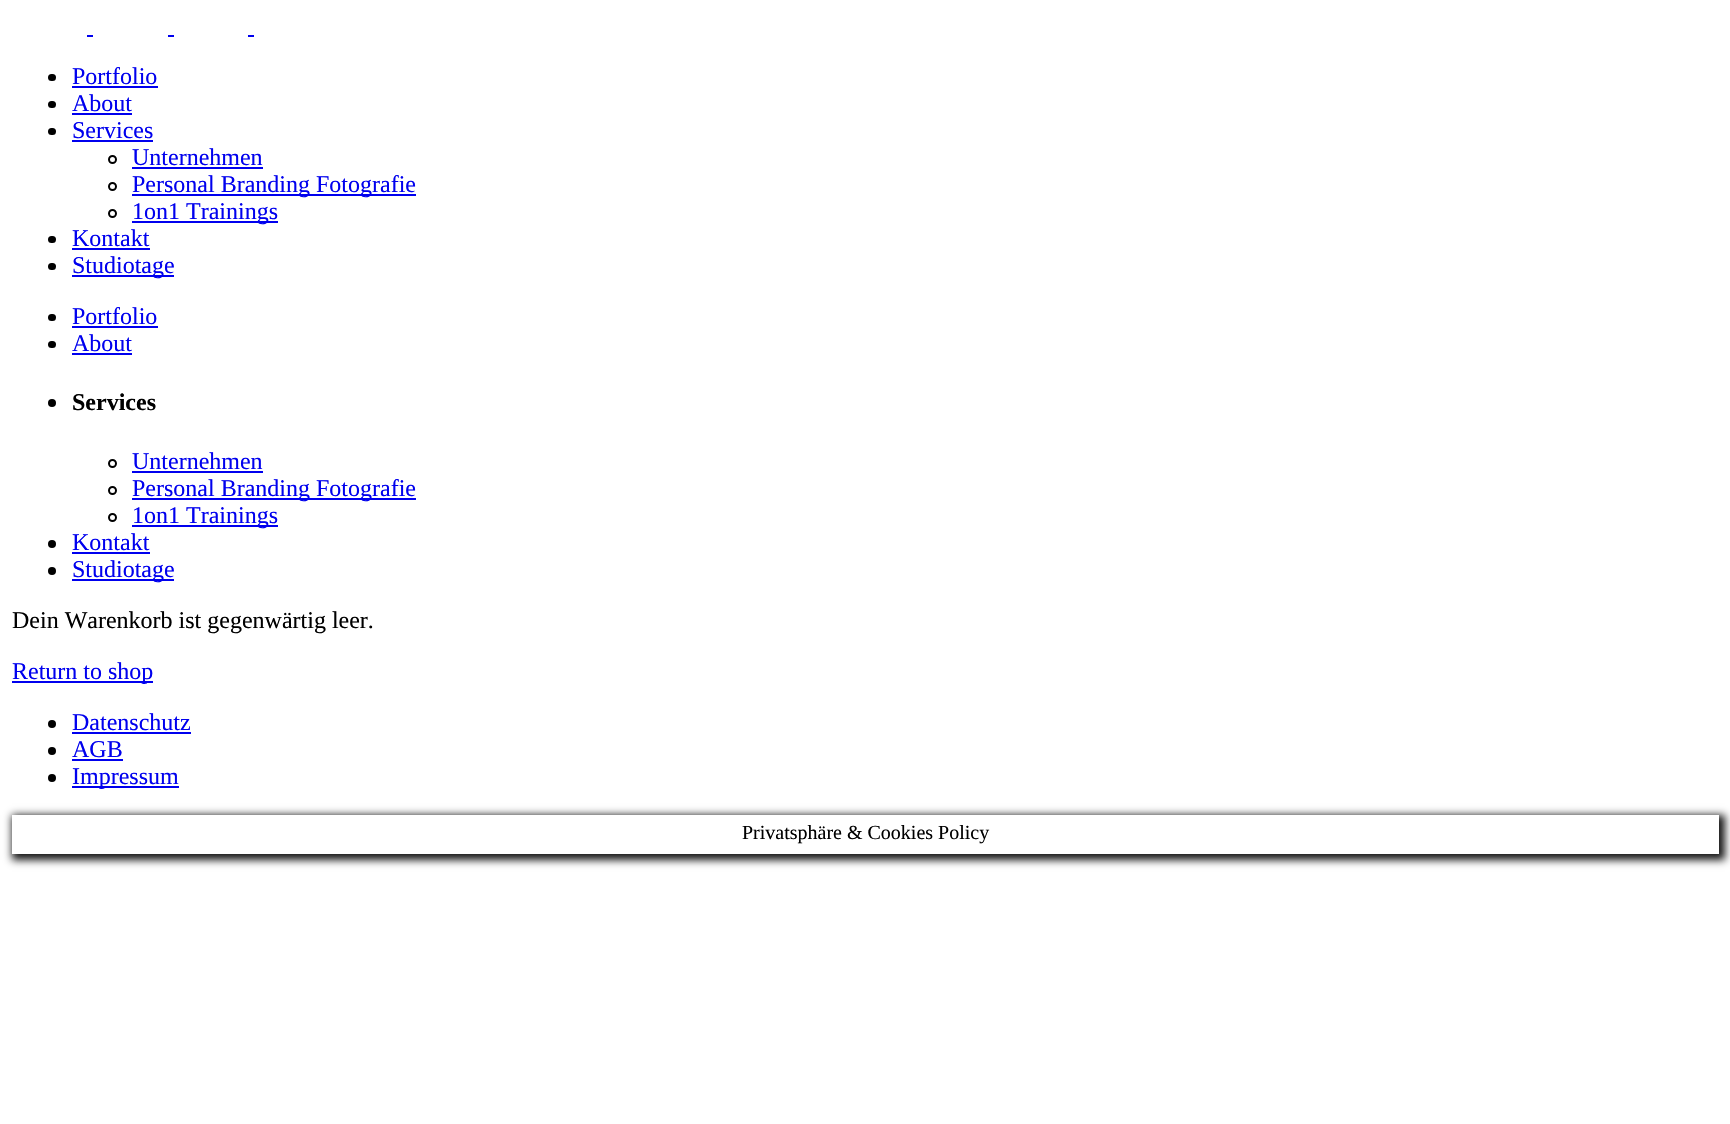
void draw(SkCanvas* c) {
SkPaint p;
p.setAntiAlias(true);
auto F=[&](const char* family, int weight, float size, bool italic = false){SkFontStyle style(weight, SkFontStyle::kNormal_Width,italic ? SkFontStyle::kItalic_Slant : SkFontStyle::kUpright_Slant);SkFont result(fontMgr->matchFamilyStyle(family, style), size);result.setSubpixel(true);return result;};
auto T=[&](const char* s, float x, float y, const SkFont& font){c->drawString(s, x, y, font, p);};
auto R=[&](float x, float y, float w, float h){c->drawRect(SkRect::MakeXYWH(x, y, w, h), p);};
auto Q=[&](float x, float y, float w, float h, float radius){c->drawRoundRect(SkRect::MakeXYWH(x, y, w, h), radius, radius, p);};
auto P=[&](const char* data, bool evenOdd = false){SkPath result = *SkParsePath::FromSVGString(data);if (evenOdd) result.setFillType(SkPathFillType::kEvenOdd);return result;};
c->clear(0xffffffff);
p.setColor(0xff0000ee);
R(87,35,6,2);
R(168,35,6,2);
R(248,35,6,2);
p.setColor(0xff000000);
Q(48,74,8,7,3.5);
auto f1 = F("Liberation Serif",400,24);
p.setColor(0xff0000ee);
T("Portfolio",72,84,f1);
R(72,86,86,2);
p.setColor(0xff000000);
Q(48,101,8,7,3.5);
p.setColor(0xff0000ee);
T("About",72,111,f1);
R(72,113,60,2);
p.setColor(0xff000000);
Q(48,128,8,7,3.5);
p.setColor(0xff0000ee);
T("Services",72,138,f1);
R(72,140,81,2);
p.setStroke(true);
p.setStrokeWidth(2);
p.setColor(0xff000000);
c->drawCircle(112.5,159.5,3.5,p);
p.setStroke(false);
p.setColor(0xff0000ee);
T("Unternehmen",132,165,f1);
R(132,167,131,2);
p.setStroke(true);
p.setColor(0xff000000);
c->drawCircle(112.5,186.5,3.5,p);
p.setStroke(false);
p.setColor(0xff0000ee);
R(132,194,284,2);
T("Personal Branding Fotografie",132,192,f1);
p.setStroke(true);
p.setColor(0xff000000);
c->drawCircle(112.5,213.5,3.5,p);
p.setStroke(false);
p.setColor(0xff0000ee);
R(132,221,146,2);
T("1on1 Trainings",132,219,f1);
p.setColor(0xff000000);
Q(48,236,8,7,3.5);
p.setColor(0xff0000ee);
T("Kontakt",72,246,f1);
R(72,248,78,2);
p.setColor(0xff000000);
Q(48,263,8,7,3.5);
p.setColor(0xff0000ee);
R(72,275,102,2);
T("Studiotage",72,273,f1);
p.setColor(0xff000000);
Q(48,314,8,7,3.5);
p.setColor(0xff0000ee);
T("Portfolio",72,324,f1);
R(72,326,86,2);
p.setColor(0xff000000);
Q(48,341,8,7,3.5);
p.setColor(0xff0000ee);
T("About",72,351,f1);
R(72,353,60,2);
p.setColor(0xff000000);
c->drawCircle(52,403,4,p);
auto f2 = F("Liberation Serif",700,24);
T("Services",72,410,f2);
p.setStroke(true);
c->drawCircle(112.5,463.5,3.5,p);
p.setStroke(false);
p.setColor(0xff0000ee);
T("Unternehmen",132,469,f1);
R(132,471,131,2);
p.setStroke(true);
p.setColor(0xff000000);
c->drawCircle(112.5,490.5,3.5,p);
p.setStroke(false);
p.setColor(0xff0000ee);
R(132,498,284,2);
T("Personal Branding Fotografie",132,496,f1);
p.setStroke(true);
p.setColor(0xff000000);
c->drawCircle(112.5,517.5,3.5,p);
p.setStroke(false);
p.setColor(0xff0000ee);
R(132,525,146,2);
T("1on1 Trainings",132,523,f1);
p.setColor(0xff000000);
c->drawCircle(52,544,4,p);
p.setColor(0xff0000ee);
T("Kontakt",72,550,f1);
R(72,552,78,2);
p.setColor(0xff000000);
c->drawCircle(52,571,4,p);
p.setColor(0xff0000ee);
R(72,579,102,2);
T("Studiotage",72,577,f1);
p.setColor(0xff000000);
T("Dein Warenkorb ist gegenwärtig leer.",12,628,f1);
p.setColor(0xff0000ee);
R(12,681,141,2);
T("Return to shop",12,679,f1);
p.setColor(0xff000000);
c->drawCircle(52,724,4,p);
p.setColor(0xff0000ee);
T("Datenschutz",72,730,f1);
R(72,732,119,2);
p.setColor(0xff000000);
c->drawCircle(52,751,4,p);
p.setColor(0xff0000ee);
T("AGB",72,757,f1);
R(72,759,51,2);
p.setColor(0xff000000);
c->drawCircle(52,778,4,p);
p.setColor(0xff0000ee);
R(72,786,107,2);
T("Impressum",72,784,f1);
c->save();
c->clipPath(P("M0 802h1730v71h-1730zm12 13h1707v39h-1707z",true),true);
p.setColor(0xff161616);
p.setMaskFilter(SkMaskFilter::MakeBlur(kNormal_SkBlurStyle, 4));
c->drawRect(SkRect::MakeXYWH(12,815,1713,45),p);
p.setMaskFilter(nullptr);
c->restore();
auto f3 = F("Liberation Serif",400,20);
p.setColor(0xff000000);
T("Privatsphäre & Cookies Policy",742,839,f3);
}
